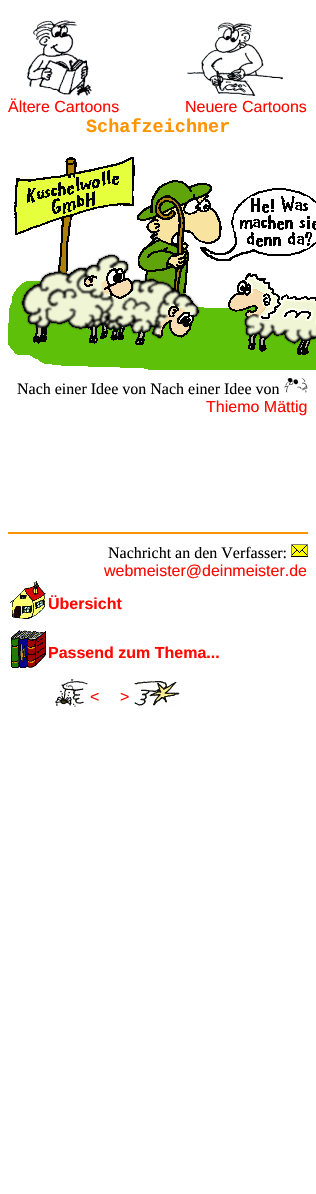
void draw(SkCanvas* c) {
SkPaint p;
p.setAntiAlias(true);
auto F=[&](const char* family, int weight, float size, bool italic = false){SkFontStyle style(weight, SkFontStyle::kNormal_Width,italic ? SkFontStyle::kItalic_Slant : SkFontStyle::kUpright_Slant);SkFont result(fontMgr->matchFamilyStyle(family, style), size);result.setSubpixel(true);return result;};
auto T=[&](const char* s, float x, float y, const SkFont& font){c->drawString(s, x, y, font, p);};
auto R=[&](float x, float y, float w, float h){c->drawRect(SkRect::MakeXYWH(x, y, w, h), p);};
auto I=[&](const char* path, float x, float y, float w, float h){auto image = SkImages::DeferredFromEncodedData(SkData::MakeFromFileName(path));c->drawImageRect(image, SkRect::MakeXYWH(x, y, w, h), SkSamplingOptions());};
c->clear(0xffffffff);
I("1.png",27,20,65,76);
auto f1 = F("Liberation Sans",400,16);
p.setColor(0xffff0800);
T("Ältere Cartoons",8,112,f1);
I("2.png",187,22,96,74);
T("Neuere Cartoons",185,112,f1);
auto f2 = F("Liberation Mono",700,18.5);
p.setColor(0xffff9400);
T("Schafzeichner",86,132,f2);
I("3.png",8,157,308,213);
auto f3 = F("Liberation Serif",400,16);
p.setColor(0xff000000);
T("Nach einer Idee von Nach einer Idee von",17,394,f3);
I("4.png",284,378,24,15);
p.setColor(0xffff0800);
T("Thiemo Mättig",206,412,f1);
p.setColor(0xffff9400);
R(8,532,300,2);
p.setColor(0xff000000);
T("Nachricht an den Verfasser:",108,558,f3);
I("5.png",291,544,17,13);
p.setColor(0xffff0800);
T("webmeister@deinmeister.de",104,576,f1);
I("6.png",10,581,36,38);
auto f4 = F("Liberation Sans",700,16);
T("Übersicht",48,609,f4);
I("7.png",11,630,35,38);
T("Passend zum Thema...",48,658,f4);
I("8.png",55,679,33,28);
T("<",90,702,f1);
I("9.png",134,681,46,25);
T(">",120,702,f1);
}
